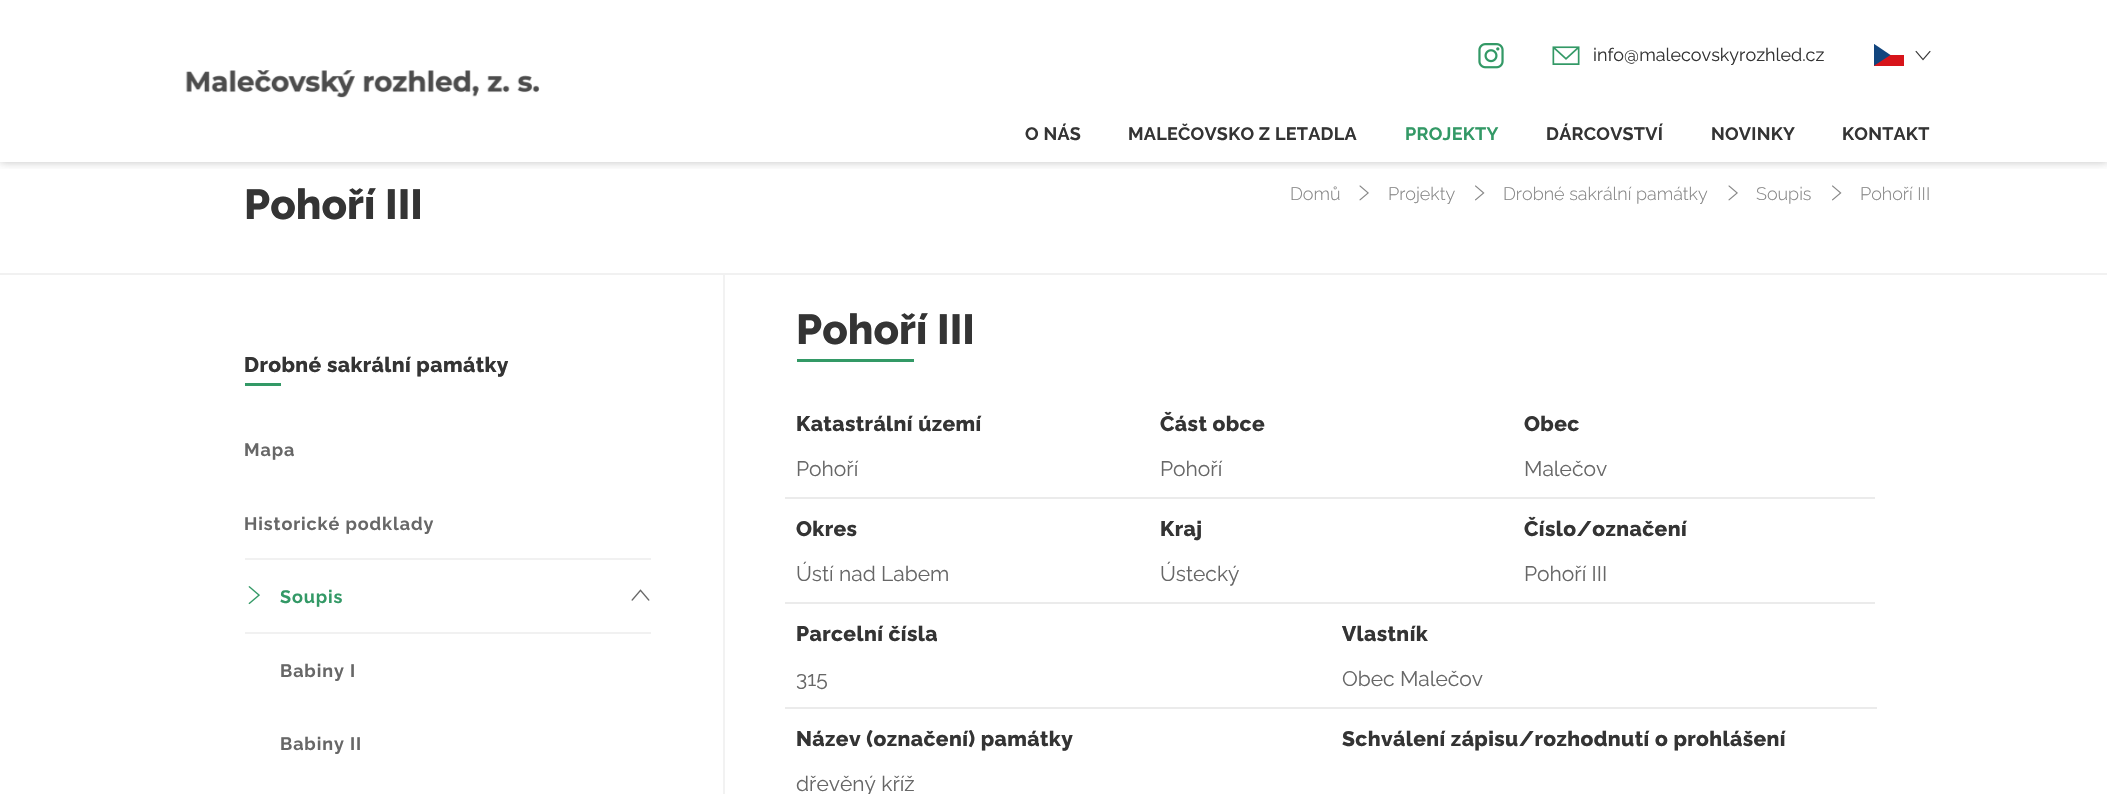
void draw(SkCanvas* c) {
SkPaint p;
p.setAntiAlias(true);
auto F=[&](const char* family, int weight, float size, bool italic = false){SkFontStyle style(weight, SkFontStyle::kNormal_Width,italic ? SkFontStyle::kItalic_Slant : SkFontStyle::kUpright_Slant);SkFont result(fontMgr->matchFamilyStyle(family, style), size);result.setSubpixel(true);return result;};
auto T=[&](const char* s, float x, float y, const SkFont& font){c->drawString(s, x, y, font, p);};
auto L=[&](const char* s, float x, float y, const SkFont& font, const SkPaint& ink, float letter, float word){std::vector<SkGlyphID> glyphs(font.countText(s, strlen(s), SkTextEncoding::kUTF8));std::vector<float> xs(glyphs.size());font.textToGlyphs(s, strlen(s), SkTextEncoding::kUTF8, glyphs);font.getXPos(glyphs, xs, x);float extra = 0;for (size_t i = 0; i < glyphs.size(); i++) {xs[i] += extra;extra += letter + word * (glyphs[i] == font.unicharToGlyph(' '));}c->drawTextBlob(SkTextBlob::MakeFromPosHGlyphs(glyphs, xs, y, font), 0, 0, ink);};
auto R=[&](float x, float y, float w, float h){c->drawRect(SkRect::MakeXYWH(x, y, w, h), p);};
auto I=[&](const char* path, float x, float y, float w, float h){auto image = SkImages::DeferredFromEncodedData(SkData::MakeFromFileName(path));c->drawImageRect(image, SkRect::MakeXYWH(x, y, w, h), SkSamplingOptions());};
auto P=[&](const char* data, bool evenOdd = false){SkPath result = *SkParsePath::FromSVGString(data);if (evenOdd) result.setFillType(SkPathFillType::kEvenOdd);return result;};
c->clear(0xffffffff);
c->save();
c->clipRect(SkRect::MakeXYWH(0,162,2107,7));
p.setColor(0x4d343434);
p.setMaskFilter(SkMaskFilter::MakeBlur(kNormal_SkBlurStyle, 4.5));
c->drawRect(SkRect::MakeXYWH(0,0,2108,162),p);
p.setMaskFilter(nullptr);
c->restore();
I("1.png",185,70,355,28);
I("2.png",1478,43,26,26);
I("3.png",1552,46,28,19);
auto f1 = F("Raleway",400,18);
p.setColor(0xff343434);
T("info@malecovskyrozhled.cz",1593,61,f1);
p.setColor(0xffd7141a);
R(1874,55,30,11);
c->save();
c->clipRect(SkRect::MakeXYWH(1874,44,30,22));
p.setColor(0xff11457e);
c->drawPath(P("M1890.5 55l-17-11.5v22.5z"),p);
c->restore();
I("4.png",1915,50,16,11);
auto f2 = F("Raleway",700,18);
p.setColor(0xff343434);
L("O NÁS",1025,140,f2,p,.25,0);
L("MALEČOVSKO Z LETADLA",1128,140,f2,p,.25,0);
p.setColor(0xff339966);
L("PROJEKTY",1405,140,f2,p,.25,0);
p.setColor(0xff343434);
L("DÁRCOVSTVÍ",1546,140,f2,p,.25,0);
L("NOVINKY",1711,140,f2,p,.25,0);
L("KONTAKT",1842,140,f2,p,.25,0);
p.setColor(0xfff1f1f1);
R(0,273,2107,2);
auto f3 = F("Raleway",800,42);
p.setColor(0xff343434);
T("Pohoří III",244,219,f3);
auto f4 = F("Raleway",300,18);
p.setColor(0xff858585);
T("Domů",1290,200,f4);
I("5.png",1359,185,10,16);
T("Projekty",1388,200,f4);
I("6.png",1475,185,10,16);
T("Drobné sakrální památky",1503,200,f4);
I("5.png",1728,185,10,16);
T("Soupis",1756,200,f4);
I("6.png",1832,185,10,16);
T("Pohoří III",1860,200,f4);
p.setColor(0xfff2f2f2);
R(723,275,2,519);
auto f5 = F("Raleway",800,21);
p.setColor(0xff343434);
L("Drobné sakrální památky",244,372,f5,p,.4,0);
p.setColor(0xff339966);
R(245,383,36,3);
p.setColor(0xff676767);
L("Mapa",244,456,f2,p,.9,0);
L("Historické podklady",244,530,f2,p,.9,0);
p.setColor(0xfff1f1f1);
R(245,558,406,2);
R(245,632,406,2);
I("7.png",248,586,12,19);
p.setColor(0xff339966);
L("Soupis",280,603,f2,p,.9,0);
I("8.png",631,589,19,12);
p.setColor(0xff676767);
L("Babiny I",280,677,f2,p,.9,0);
L("Babiny II",280,750,f2,p,.9,0);
p.setColor(0xff343434);
T("Pohoří III",796,344,f3);
p.setColor(0xff339966);
R(797,359,117,3);
p.setColor(0xffebebeb);
R(785,497,1090,2);
p.setColor(0xff343434);
L("Katastrální území",796,431,f5,p,.4,0);
auto f6 = F("Raleway",400,21);
p.setColor(0xff676767);
T("Pohoří",796,476,f6);
p.setColor(0xff343434);
L("Část obce",1160,431,f5,p,.4,0);
p.setColor(0xff676767);
T("Pohoří",1160,476,f6);
p.setColor(0xff343434);
L("Obec",1524,431,f5,p,.4,0);
p.setColor(0xff676767);
T("Malečov",1524,476,f6);
p.setColor(0xffebebeb);
R(785,602,1090,2);
p.setColor(0xff343434);
L("Okres",796,536,f5,p,.4,0);
p.setColor(0xff676767);
T("Ústí nad Labem",796,581,f6);
p.setColor(0xff343434);
L("Kraj",1160,536,f5,p,.4,0);
p.setColor(0xff676767);
T("Ústecký",1160,581,f6);
p.setColor(0xff343434);
L("Číslo/označení",1524,536,f5,p,.4,0);
p.setColor(0xff676767);
T("Pohoří III",1524,581,f6);
p.setColor(0xffebebeb);
R(785,707,1092,2);
p.setColor(0xff343434);
L("Parcelní čísla",796,641,f5,p,.4,0);
p.setColor(0xff676767);
T("315",796,686,f6);
p.setColor(0xff343434);
L("Vlastník",1342,641,f5,p,.4,0);
p.setColor(0xff676767);
T("Obec Malečov",1342,686,f6);
p.setColor(0xff343434);
L("Název (označení) památky",796,746,f5,p,.4,0);
p.setColor(0xff676767);
T("dřevěný kříž",796,791,f6);
p.setColor(0xff343434);
L("Schválení zápisu/rozhodnutí o prohlášení",1342,746,f5,p,.4,0);
}
